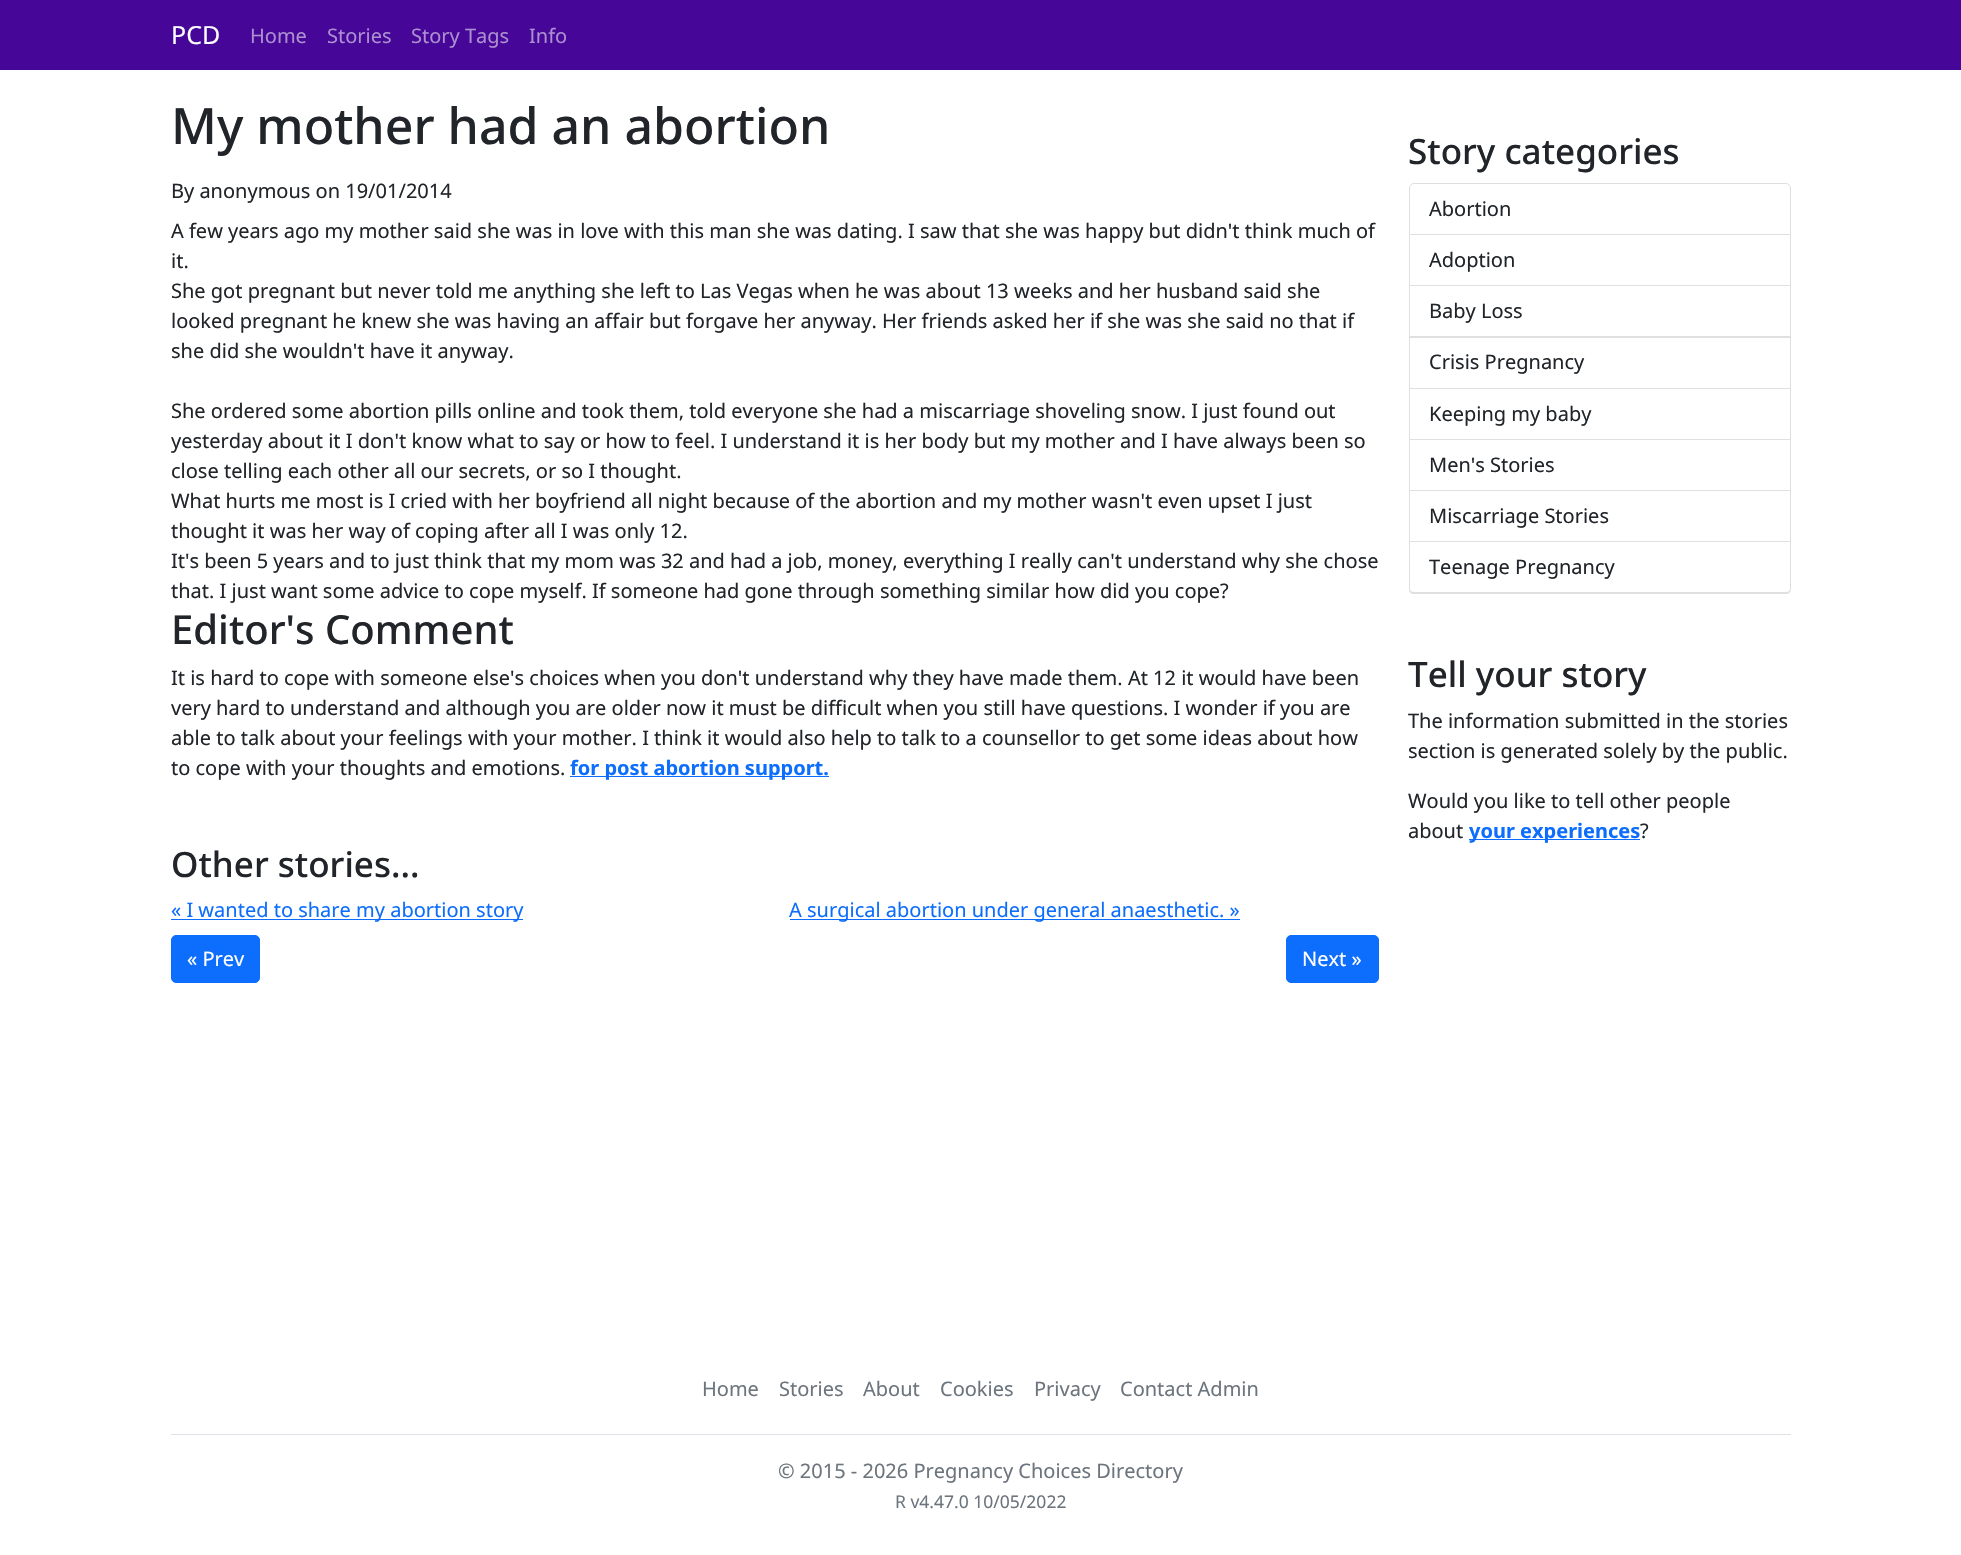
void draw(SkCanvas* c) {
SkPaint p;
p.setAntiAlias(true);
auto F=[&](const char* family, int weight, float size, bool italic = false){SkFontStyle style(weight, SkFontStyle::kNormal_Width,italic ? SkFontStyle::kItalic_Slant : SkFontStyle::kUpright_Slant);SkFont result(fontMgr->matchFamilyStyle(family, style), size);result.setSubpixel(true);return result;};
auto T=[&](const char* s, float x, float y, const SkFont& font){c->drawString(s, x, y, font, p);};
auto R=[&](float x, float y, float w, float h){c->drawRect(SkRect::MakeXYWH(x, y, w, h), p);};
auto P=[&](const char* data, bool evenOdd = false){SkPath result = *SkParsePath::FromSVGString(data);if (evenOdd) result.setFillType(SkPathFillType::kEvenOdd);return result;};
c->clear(0xffffffff);
p.setColor(0xff460697);
R(0,0,1961,70);
auto f1 = F("Noto Sans",400,25);
p.setColor(0xffffffff);
T("PCD",171,44,f1);
auto f2 = F("Noto Sans",400,20);
p.setColor(0xffac8fd0);
T("Home",250,43,f2);
T("Stories",327,43,f2);
T("Story Tags",411,43,f2);
T("Info",529,43,f2);
auto f3 = F("Noto Sans",500,50);
p.setColor(0xff212529);
T("My mother had an abortion",171,144,f3);
T("By anonymous on 19/01/2014",171,198,f2);
T("A few years ago my mother said she was in love with this man she was dating. I saw that she was happy but didn't think much of",171,238,f2);
T("it.",171,268,f2);
T("She got pregnant but never told me anything she left to Las Vegas when he was about 13 weeks and her husband said she",171,298,f2);
T("looked pregnant he knew she was having an affair but forgave her anyway. Her friends asked her if she was she said no that if",171,328,f2);
T("she did she wouldn't have it anyway.",171,358,f2);
T("She ordered some abortion pills online and took them, told everyone she had a miscarriage shoveling snow. I just found out",171,418,f2);
T("yesterday about it I don't know what to say or how to feel. I understand it is her body but my mother and I have always been so",171,448,f2);
T("close telling each other all our secrets, or so I thought.",171,478,f2);
T("What hurts me most is I cried with her boyfriend all night because of the abortion and my mother wasn't even upset I just",171,508,f2);
T("thought it was her way of coping after all I was only 12.",171,538,f2);
T("It's been 5 years and to just think that my mom was 32 and had a job, money, everything I really can't understand why she chose",171,568,f2);
T("that. I just want some advice to cope myself. If someone had gone through something similar how did you cope?",171,598,f2);
auto f4 = F("Noto Sans",500,40);
T("Editor's Comment",171,644,f4);
T("It is hard to cope with someone else's choices when you don't understand why they have made them. At 12 it would have been",171,685,f2);
T("very hard to understand and although you are older now it must be difficult when you still have questions. I wonder if you are",171,715,f2);
T("able to talk about your feelings with your mother. I think it would also help to talk to a counsellor to get some ideas about how",171,745,f2);
T("to cope with your thoughts and emotions.",171,775,f2);
p.setColor(0xff0d6efd);
R(570,776,259,1);
auto f5 = F("Noto Sans",700,20);
T("for post abortion support.",570,775,f5);
auto f6 = F("Noto Sans",500,35);
p.setColor(0xff212529);
T("Other stories...",171,877,f6);
p.setColor(0xff0d6efd);
R(171,919,352,1);
T("« I wanted to share my abortion story",171,917,f2);
R(790,919,450,1);
T("A surgical abortion under general anaesthetic. »",789,917,f2);
c->drawRoundRect(SkRect::MakeXYWH(171.5,935.5,88,47),4.5,4.5,p);
p.setStroke(true);
p.setStrokeWidth(1);
c->drawRoundRect(SkRect::MakeXYWH(171.5,935.5,88,47),4.5,4.5,p);
p.setStroke(false);
p.setColor(0xffffffff);
T("« Prev",187,966,f2);
p.setColor(0xff0d6efd);
c->drawRoundRect(SkRect::MakeXYWH(1286.5,935.5,92,47),4.5,4.5,p);
p.setStroke(true);
c->drawRoundRect(SkRect::MakeXYWH(1286.5,935.5,92,47),4.5,4.5,p);
p.setStroke(false);
p.setColor(0xffffffff);
T("Next »",1302,966,f2);
p.setColor(0xff212529);
T("Story categories",1408,164,f6);
p.setStroke(true);
p.setColor(0xffdfdfdf);
c->drawPath(P("M1414 183.5h372c2.5 0 4.5 2 4.5 4.5v46.5h-381v-46.5c0-2.5 2-4.5 4.5-4.5z"),p);
p.setStroke(false);
p.setColor(0xff212529);
T("Abortion",1429,216,f2);
p.setColor(0xffdfdfdf);
c->drawPath(P("M1791 235v51l-1-1v-50z"),p);
p.setColor(0x1f000000);
c->drawPath(P("M1791 286h-382l1-1h380z"),p);
c->drawPath(P("M1409 286v-51h1v50z"),p);
p.setColor(0xff212529);
T("Adoption",1429,267,f2);
p.setColor(0xffdfdfdf);
c->drawPath(P("M1791 286v52l-1-2v-50z"),p);
p.setColor(0x1f000000);
c->drawPath(P("M1791 338h-382l1-2h380z"),p);
c->drawPath(P("M1409 338v-52h1v50z"),p);
p.setColor(0xff212529);
T("Baby Loss",1429,318,f2);
p.setColor(0xffdfdfdf);
c->drawPath(P("M1791 338v51l-1-1v-50z"),p);
p.setColor(0x1f000000);
c->drawPath(P("M1791 389h-382l1-1h380z"),p);
c->drawPath(P("M1409 389v-51h1v50z"),p);
p.setColor(0xff212529);
T("Crisis Pregnancy",1429,369,f2);
p.setColor(0xffdfdfdf);
c->drawPath(P("M1791 389v51l-1-1v-50z"),p);
p.setColor(0x1f000000);
c->drawPath(P("M1791 440h-382l1-1h380z"),p);
c->drawPath(P("M1409 440v-51h1v50z"),p);
p.setColor(0xff212529);
T("Keeping my baby",1429,421,f2);
p.setColor(0xffdfdfdf);
c->drawPath(P("M1791 440v51l-1-1v-50z"),p);
p.setColor(0x1f000000);
c->drawPath(P("M1791 491h-382l1-1h380z"),p);
c->drawPath(P("M1409 491v-51h1v50z"),p);
p.setColor(0xff212529);
T("Men's Stories",1429,472,f2);
p.setColor(0xffdfdfdf);
c->drawPath(P("M1791 491v51l-1-1v-50z"),p);
p.setColor(0x1f000000);
c->drawPath(P("M1791 542h-382l1-1h380z"),p);
c->drawPath(P("M1409 542v-51h1v50z"),p);
p.setColor(0xff212529);
T("Miscarriage Stories",1429,523,f2);
p.setColor(0xffdfdfdf);
c->drawPath(P("M1409 542h382v47c0 3-2 5-5 5h-372c-3 0-5-2-5-5zm1 0h380v47c0 2-2 3-4 3h-372c-2 0-4-1-4-3z",true),p);
p.setColor(0xff212529);
T("Teenage Pregnancy",1429,574,f2);
T("Tell your story",1408,687,f6);
T("The information submitted in the stories",1408,728,f2);
T("section is generated solely by the public.",1408,758,f2);
T("Would you like to tell other people",1408,808,f2);
T("about",1408,838,f2);
p.setColor(0xff0d6efd);
R(1469,839,171,1);
T("your experiences",1469,838,f5);
p.setColor(0xff212529);
T("?",1640,838,f2);
p.setColor(0xffdee2e6);
R(171,1434,1620,1);
p.setColor(0xff6c757d);
T("Home",702,1396,f2);
T("Stories",779,1396,f2);
T("About",863,1396,f2);
T("Cookies",940,1396,f2);
T("Privacy",1034,1396,f2);
T("Contact Admin",1120,1396,f2);
T("© 2015 - 2026 Pregnancy Choices Directory",778,1478,f2);
auto f7 = F("Noto Sans",400,17.5);
T("R v4.47.0 10/05/2022",895,1508,f7);
}
